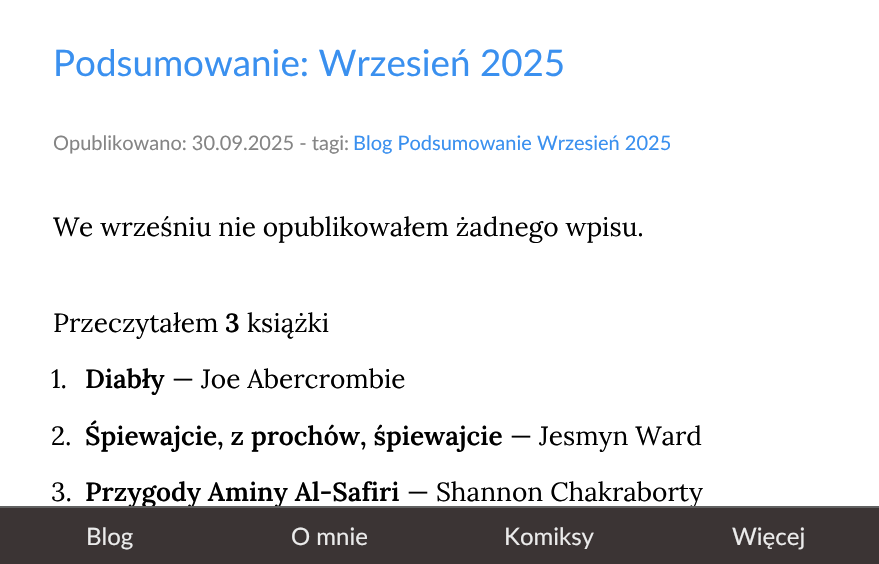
void draw(SkCanvas* c) {
SkPaint p;
p.setAntiAlias(true);
auto F=[&](const char* family, int weight, float size, bool italic = false){SkFontStyle style(weight, SkFontStyle::kNormal_Width,italic ? SkFontStyle::kItalic_Slant : SkFontStyle::kUpright_Slant);SkFont result(fontMgr->matchFamilyStyle(family, style), size);result.setSubpixel(true);return result;};
auto T=[&](const char* s, float x, float y, const SkFont& font){c->drawString(s, x, y, font, p);};
auto R=[&](float x, float y, float w, float h){c->drawRect(SkRect::MakeXYWH(x, y, w, h), p);};
c->clear(0xffffffff);
auto f1 = F("Lato",400,36.75);
p.setColor(0xff3a90ef);
T("Podsumowanie: Wrzesień 2025",53,76,f1);
auto f2 = F("Lato",400,20);
p.setColor(0xff858585);
T("Opublikowano: 30.09.2025 - tagi:",53,150,f2);
p.setColor(0xff3a90ef);
T("Blog Podsumowanie Wrzesień 2025",353,150,f2);
auto f3 = F("Lora",400,26.25);
p.setColor(0xff000000);
T("We wrześniu nie opublikowałem żadnego wpisu.",53,236,f3);
T("Przeczytałem",53,332,f3);
auto f4 = F("Lora",600,26.25);
T("3",225,332,f4);
T("książki",247,332,f3);
T("1.",51,388,f3);
T("Diabły",85,388,f4);
T("— Joe Abercrombie",172,388,f3);
T("2.",51,445,f3);
T("Śpiewajcie, z prochów, śpiewajcie",85,445,f4);
T("— Jesmyn Ward",510,445,f3);
T("3.",51,501,f3);
c->save();
c->clipRect(SkRect::MakeXYWH(0,0,879,506));
T("Przygody Aminy Al-Safiri",85,501,f4);
T("— Shannon Chakraborty",407,501,f3);
c->restore();
p.setColor(0xff3b3434);
R(0,508,879,56);
p.setColor(0xff616161);
R(0,506,879,2);
auto f5 = F("Lato",400,24);
p.setColor(0xffebebeb);
T("Blog",86,545,f5);
T("O mnie",291,545,f5);
T("Komiksy",504,545,f5);
T("Więcej",732,545,f5);
}
